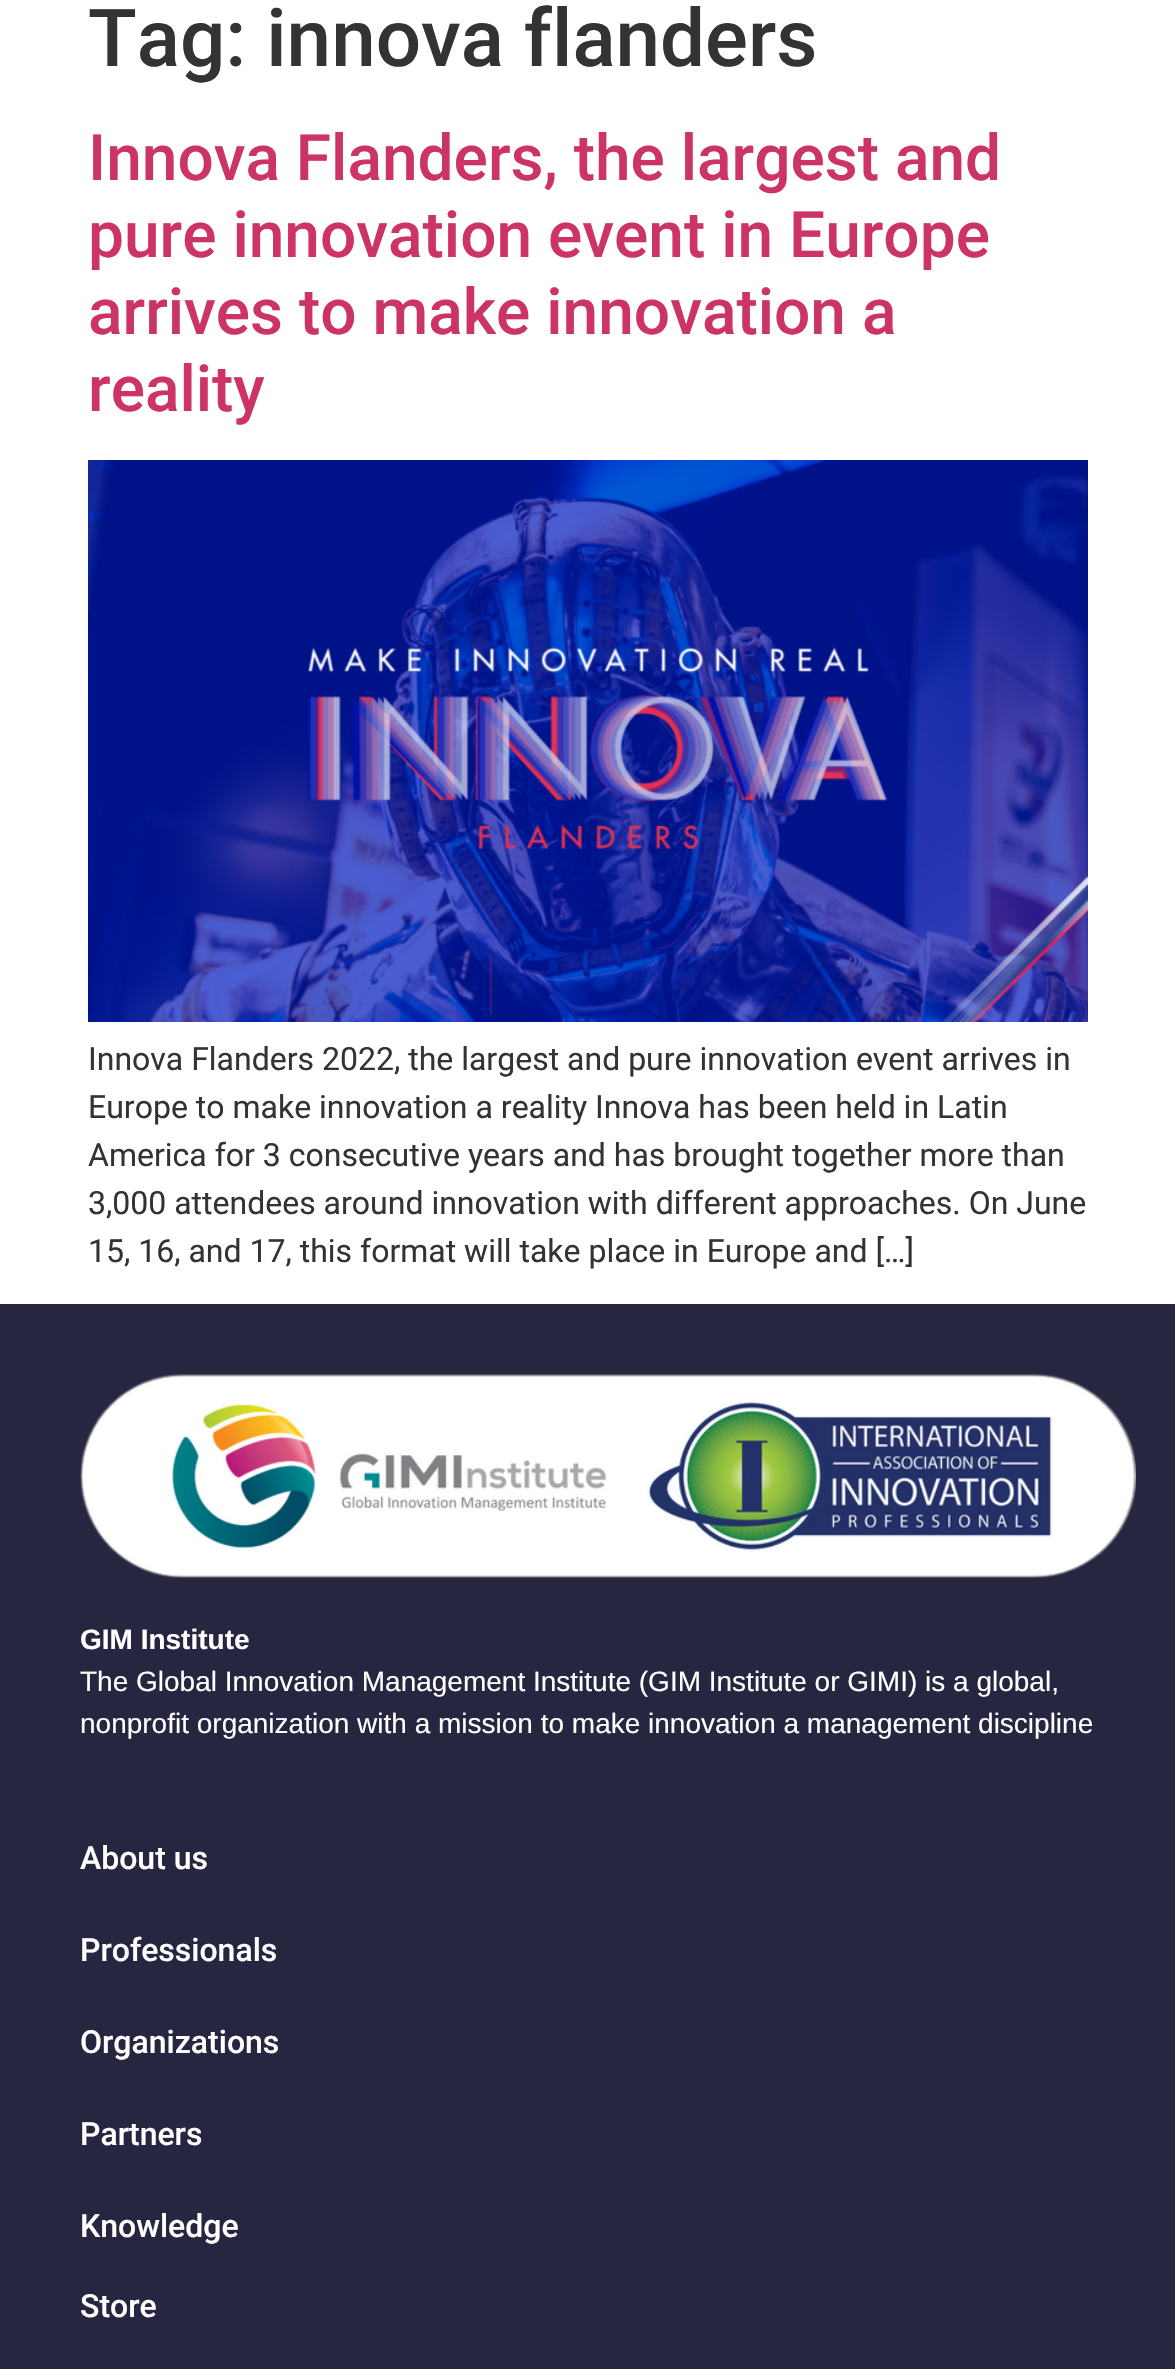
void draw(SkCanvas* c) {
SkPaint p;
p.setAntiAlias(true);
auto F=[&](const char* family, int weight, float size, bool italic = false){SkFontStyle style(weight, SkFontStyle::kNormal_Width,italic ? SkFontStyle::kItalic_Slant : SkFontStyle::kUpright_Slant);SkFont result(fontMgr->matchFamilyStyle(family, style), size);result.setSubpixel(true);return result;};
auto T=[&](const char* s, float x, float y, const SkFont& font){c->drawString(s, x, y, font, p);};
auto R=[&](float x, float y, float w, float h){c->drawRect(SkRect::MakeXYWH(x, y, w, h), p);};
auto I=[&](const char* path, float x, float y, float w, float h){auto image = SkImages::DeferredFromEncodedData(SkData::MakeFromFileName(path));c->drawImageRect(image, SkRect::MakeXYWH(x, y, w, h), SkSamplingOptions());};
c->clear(0xffffffff);
auto f1 = F("Roboto",500,80);
p.setColor(0xff333333);
T("Tag: innova flanders",88,66,f1);
auto f2 = F("Roboto",500,64);
p.setColor(0xffcc3366);
T("Innova Flanders, the largest and",88,180,f2);
T("pure innovation event in Europe",88,257,f2);
T("arrives to make innovation a",88,334,f2);
T("reality",88,411,f2);
I("1.png",88,460,1000,562);
auto f3 = F("Roboto",400,32);
p.setColor(0xff333333);
T("Innova Flanders 2022, the largest and pure innovation event arrives in",88,1070,f3);
T("Europe to make innovation a reality Innova has been held in Latin",88,1118,f3);
T("America for 3 consecutive years and has brought together more than",88,1166,f3);
T("3,000 attendees around innovation with different approaches. On June",88,1214,f3);
T("15, 16, and 17, this format will take place in Europe and […]",88,1262,f3);
p.setColor(0xff262641);
R(0,1304,1175,1065);
I("2.png",80,1374,1056,204);
auto f4 = F("Liberation Sans",700,28);
p.setColor(0xffffffff);
T("GIM Institute",80,1649,f4);
auto f5 = F("Liberation Sans",400,28);
T("The Global Innovation Management Institute (GIM Institute or GIMI) is a global,",80,1691,f5);
T("nonprofit organization with a mission to make innovation a management discipline",80,1733,f5);
auto f6 = F("Roboto",500,32);
T("About us",80,1869,f6);
T("Professionals",80,1961,f6);
T("Organizations",80,2053,f6);
T("Partners",80,2145,f6);
T("Knowledge",80,2237,f6);
T("Store",80,2317,f6);
}
